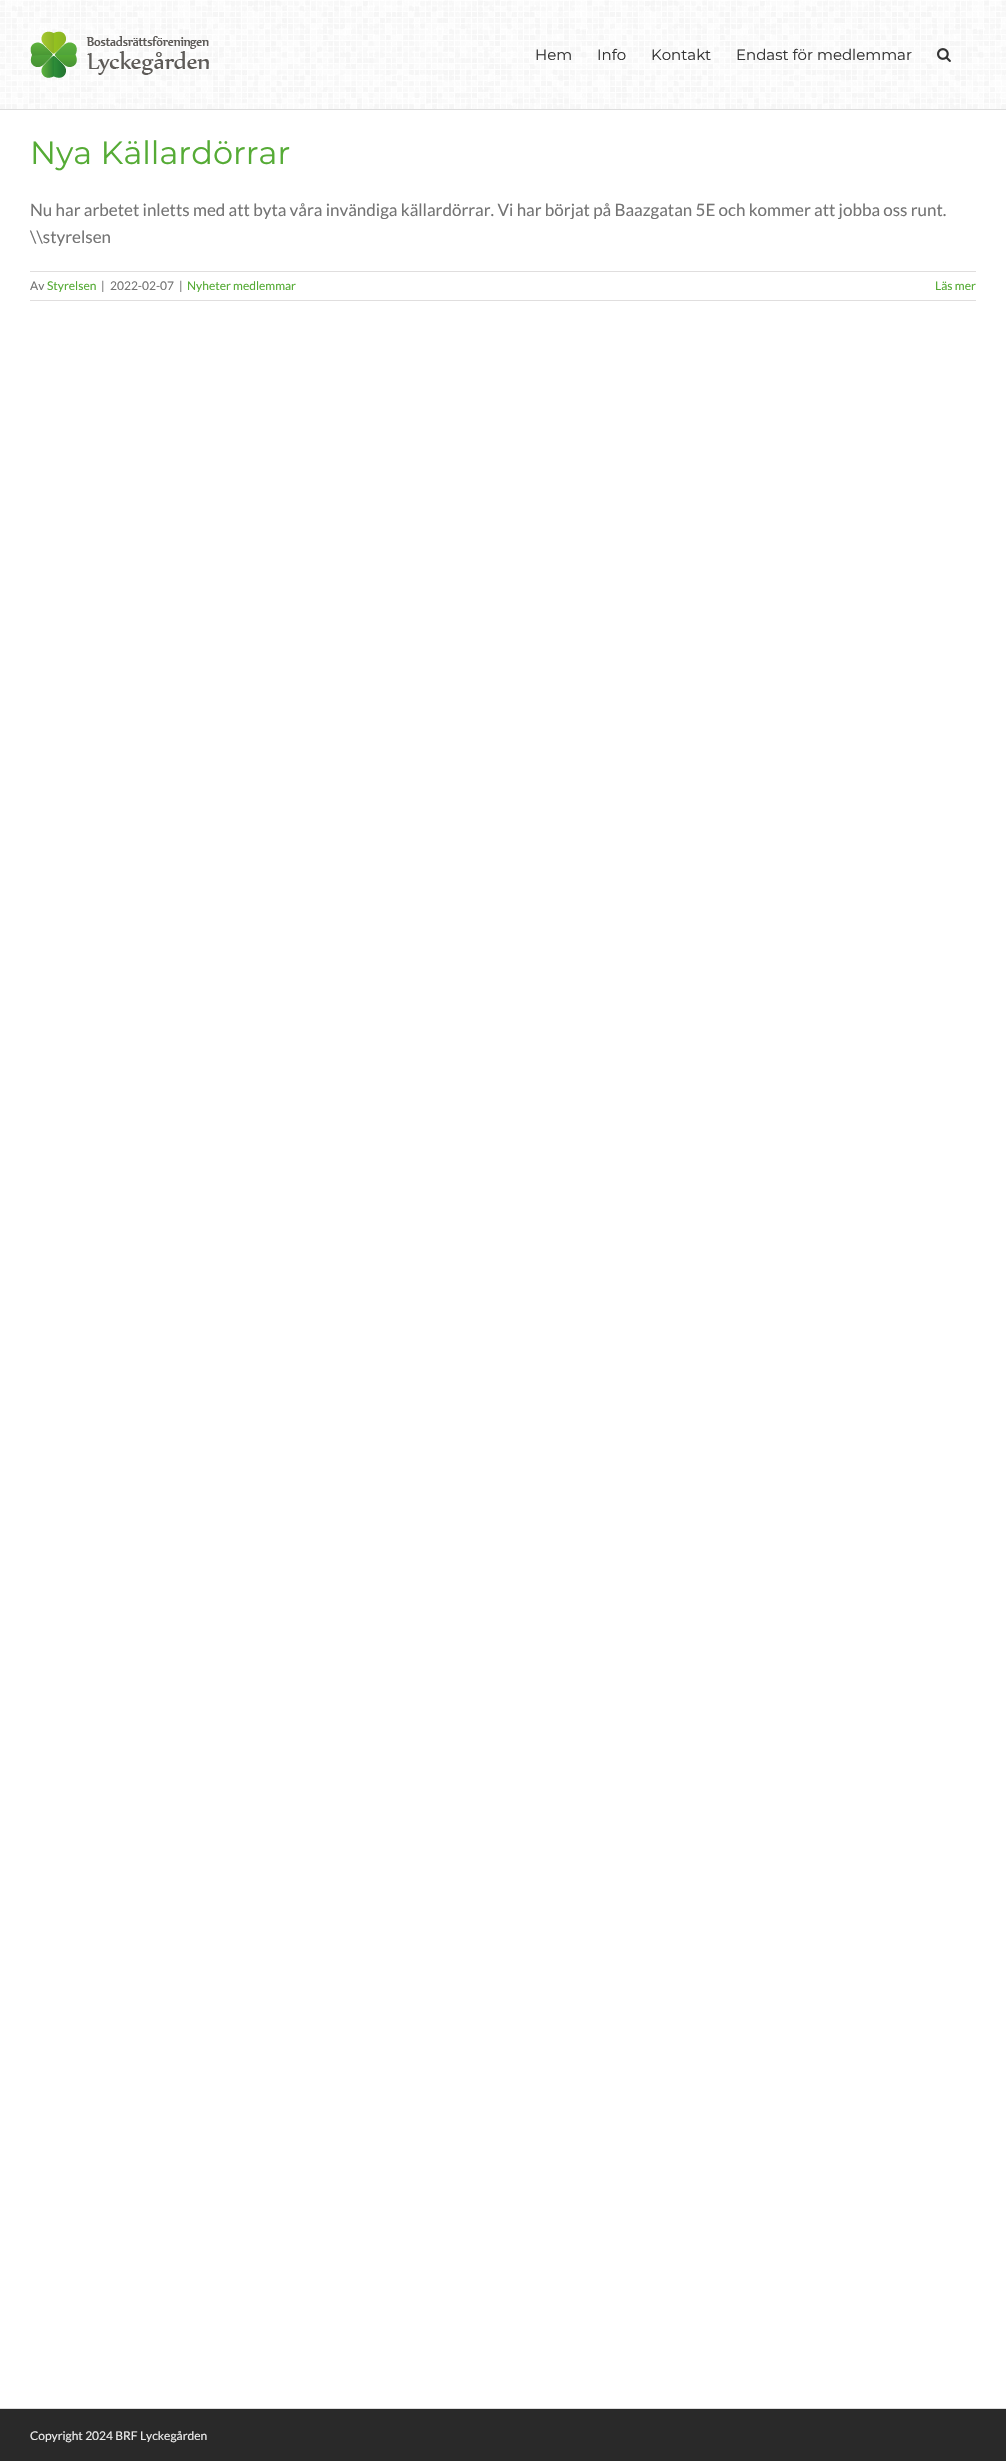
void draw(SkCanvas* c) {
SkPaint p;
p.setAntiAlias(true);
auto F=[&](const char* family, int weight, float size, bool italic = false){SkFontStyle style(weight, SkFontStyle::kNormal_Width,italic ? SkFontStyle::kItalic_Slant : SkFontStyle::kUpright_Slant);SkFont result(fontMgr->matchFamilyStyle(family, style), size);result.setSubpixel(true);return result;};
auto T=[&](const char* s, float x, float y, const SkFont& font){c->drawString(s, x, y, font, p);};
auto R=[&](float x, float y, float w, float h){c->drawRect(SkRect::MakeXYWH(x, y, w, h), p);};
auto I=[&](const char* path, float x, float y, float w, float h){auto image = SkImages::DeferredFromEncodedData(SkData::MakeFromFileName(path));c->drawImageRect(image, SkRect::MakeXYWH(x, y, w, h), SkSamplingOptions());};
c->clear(0xffffffff);
p.setColor(0xffdddddd);
R(0,109,1006,1);
I("1.png",0,0,1006,109);
I("2.png",30,31,179,47);
auto f1 = F("Montserrat",100,15);
p.setColor(0xff333333);
T("Hem",535,60,f1);
T("Info",597,60,f1);
T("Kontakt",651,60,f1);
T("Endast för medlemmar",736,60,f1);
I("3.png",937,48,14,14);
auto f2 = F("Montserrat",100,32);
p.setColor(0xff55ab35);
T("Nya Källardörrar",30,164,f2);
auto f3 = F("Lato",400,17);
p.setColor(0xff747474);
T("Nu har arbetet inletts med att byta våra invändiga källardörrar. Vi har börjat på Baazgatan 5E och kommer att jobba oss runt.",30,216,f3);
T("\\\\styrelsen",30,243,f3);
p.setColor(0xffe0dede);
R(30,271,946,1);
R(30,300,946,1);
auto f4 = F("Lato",400,12);
p.setColor(0xff747474);
T("Av",30,290,f4);
p.setColor(0xff55ab35);
T("Styrelsen",47,290,f4);
p.setColor(0xff747474);
T("|",101,290,f4);
T("2022-02-07",110,290,f4);
T("|",179,290,f4);
p.setColor(0xff55ab35);
T("Nyheter medlemmar",187,290,f4);
T("Läs mer",935,290,f4);
p.setColor(0xff292929);
R(0,2409,1006,52);
p.setColor(0xffdddddd);
R(0,2408,1006,1);
p.setColor(0xffededed);
T("Copyright 2024 BRF Lyckegården",30,2440,f4);
}
